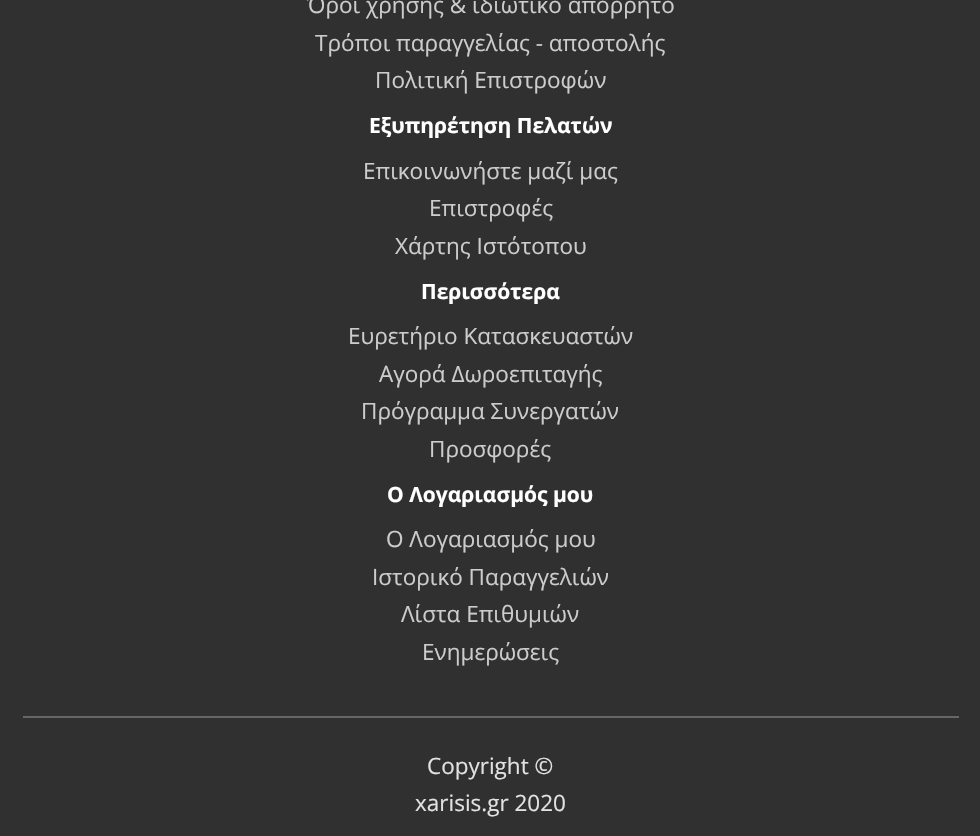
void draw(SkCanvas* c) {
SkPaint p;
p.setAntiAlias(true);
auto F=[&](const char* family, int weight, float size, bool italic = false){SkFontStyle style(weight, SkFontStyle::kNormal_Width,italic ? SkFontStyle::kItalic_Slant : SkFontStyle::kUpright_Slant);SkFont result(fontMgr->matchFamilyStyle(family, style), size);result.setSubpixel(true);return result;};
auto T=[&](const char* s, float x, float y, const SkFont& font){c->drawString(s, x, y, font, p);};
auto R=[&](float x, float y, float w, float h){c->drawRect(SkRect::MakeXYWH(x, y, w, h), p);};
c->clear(0xff303030);
auto f1 = F("Open Sans",400,22.5);
p.setColor(0xffcccccc);
T("Όροι χρήσης & ιδιωτικό απόρρητο",307,13,f1);
T("Τρόποι παραγγελίας - αποστολής",315,51,f1);
T("Πολιτική Επιστροφών",375,88,f1);
auto f2 = F("Open Sans",700,21);
p.setColor(0xffffffff);
T("Εξυπηρέτηση Πελατών",369,133,f2);
p.setColor(0xffcccccc);
T("Επικοινωνήστε μαζί μας",363,179,f1);
T("Επιστροφές",429,216,f1);
T("Χάρτης Ιστότοπου",395,254,f1);
p.setColor(0xffffffff);
T("Περισσότερα",421,299,f2);
p.setColor(0xffcccccc);
T("Ευρετήριο Κατασκευαστών",348,344,f1);
T("Αγορά Δωροεπιταγής",379,382,f1);
T("Πρόγραμμα Συνεργατών",361,419,f1);
T("Προσφορές",429,457,f1);
p.setColor(0xffffffff);
T("Ο Λογαριασμός μου",387,502,f2);
p.setColor(0xffcccccc);
T("Ο Λογαριασμός μου",386,547,f1);
T("Ιστορικό Παραγγελιών",372,585,f1);
T("Λίστα Επιθυμιών",401,622,f1);
T("Ενημερώσεις",422,660,f1);
p.setColor(0xff666666);
R(23,716,936,2);
p.setColor(0xffe2e2e2);
T("Copyright ©",427,774,f1);
T("xarisis.gr 2020",415,811,f1);
}
